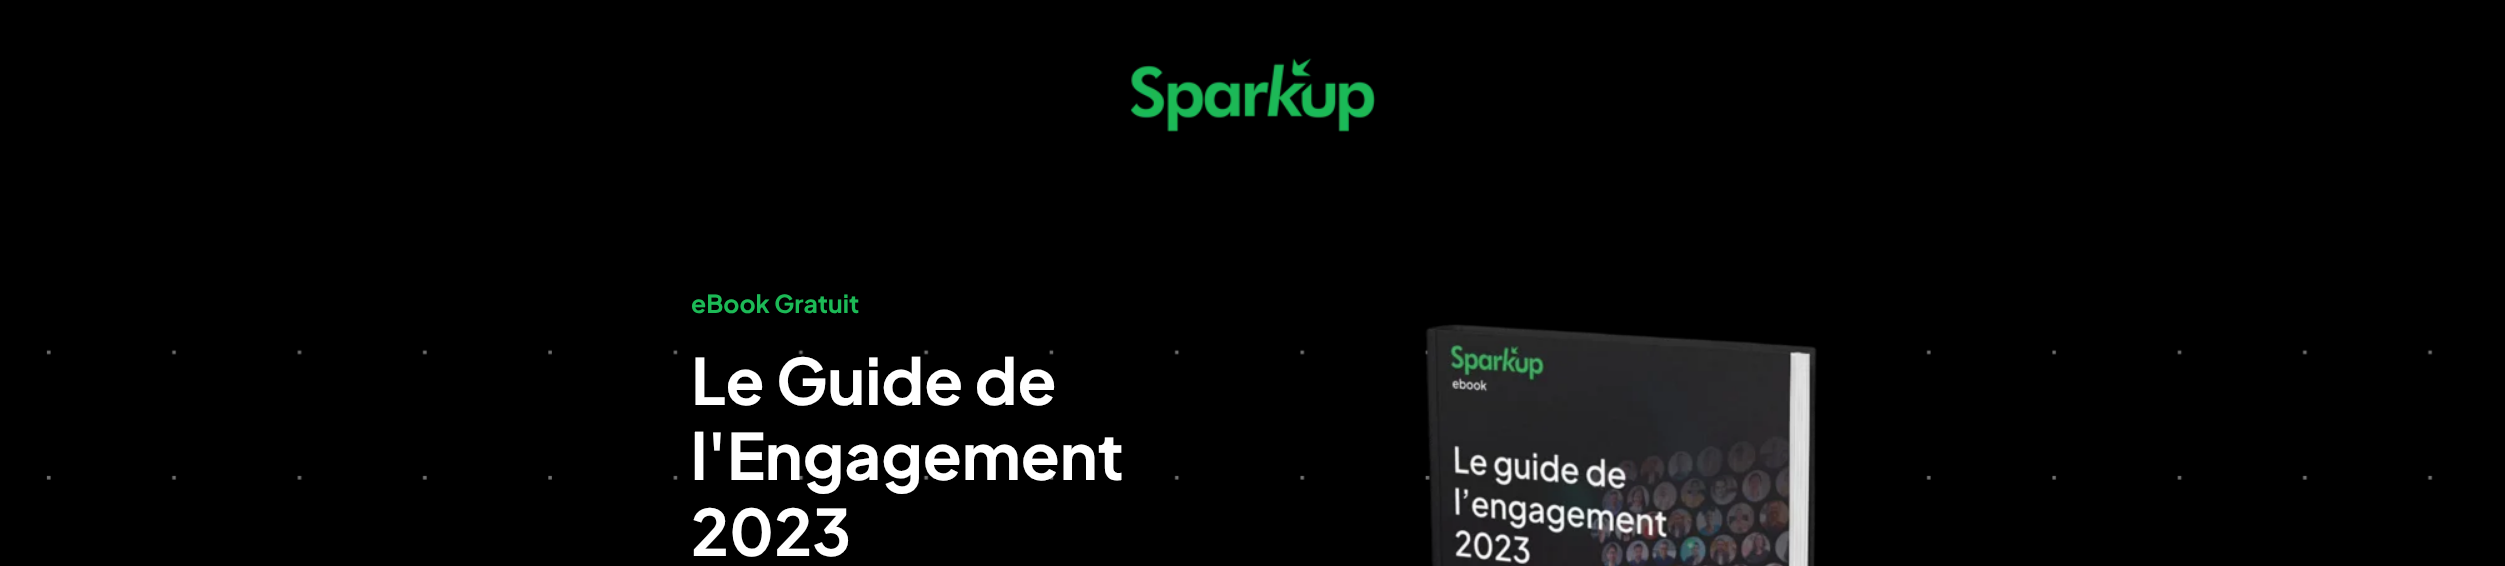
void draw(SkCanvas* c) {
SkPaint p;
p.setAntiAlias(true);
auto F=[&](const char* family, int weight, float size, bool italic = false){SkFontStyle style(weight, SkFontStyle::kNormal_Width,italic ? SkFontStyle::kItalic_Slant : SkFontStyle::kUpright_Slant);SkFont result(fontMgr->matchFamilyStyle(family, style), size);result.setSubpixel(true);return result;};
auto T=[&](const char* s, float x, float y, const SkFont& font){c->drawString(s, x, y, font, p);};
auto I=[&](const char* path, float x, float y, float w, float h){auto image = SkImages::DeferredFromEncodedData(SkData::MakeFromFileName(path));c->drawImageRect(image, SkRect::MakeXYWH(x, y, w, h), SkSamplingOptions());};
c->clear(0xff000000);
I("1.png",1130,58,246,74);
I("2.png",0,190,2505,376);
auto f1 = F("Plus Jakarta Sans",700,24.75);
p.setColor(0xff1cba56);
T("eBook Gratuit",691,313,f1);
auto f2 = F("Plus Jakarta Sans",700,63.75);
p.setColor(0xffffffff);
T("Le Guide de",691,405,f2);
T("l'Engagement",691,480,f2);
T("2023",691,556,f2);
I("3.png",1425,324,392,242);
}
